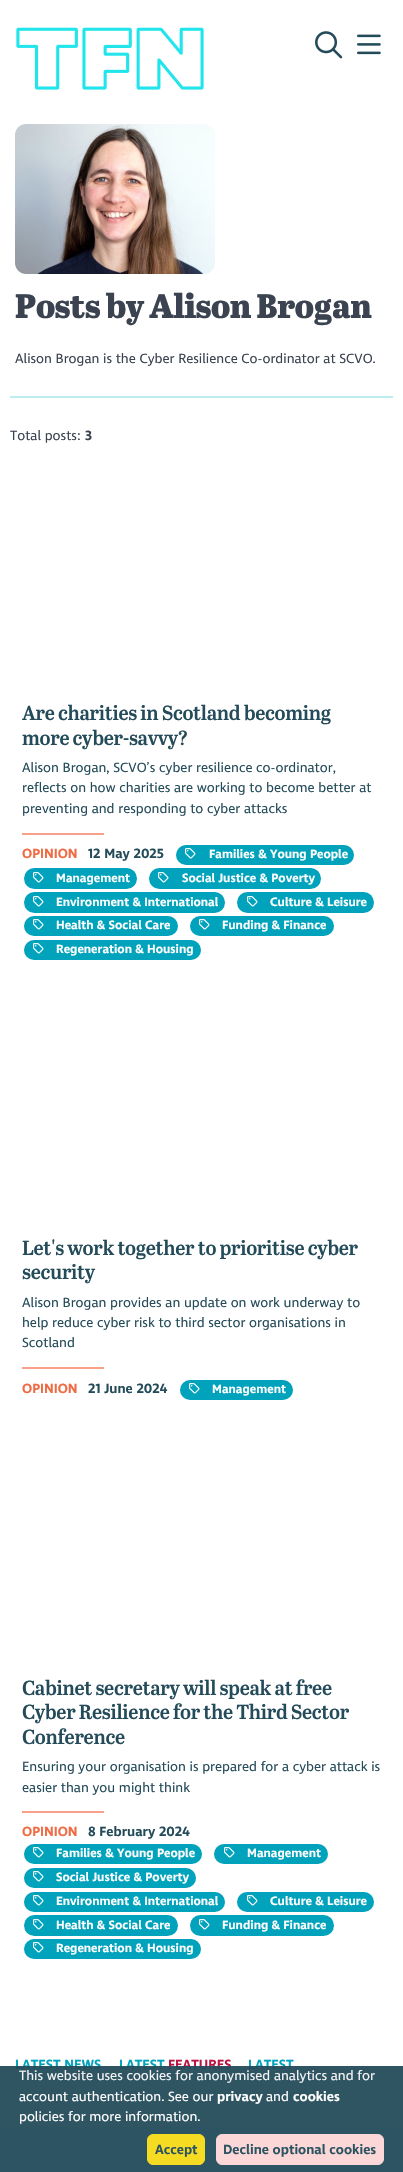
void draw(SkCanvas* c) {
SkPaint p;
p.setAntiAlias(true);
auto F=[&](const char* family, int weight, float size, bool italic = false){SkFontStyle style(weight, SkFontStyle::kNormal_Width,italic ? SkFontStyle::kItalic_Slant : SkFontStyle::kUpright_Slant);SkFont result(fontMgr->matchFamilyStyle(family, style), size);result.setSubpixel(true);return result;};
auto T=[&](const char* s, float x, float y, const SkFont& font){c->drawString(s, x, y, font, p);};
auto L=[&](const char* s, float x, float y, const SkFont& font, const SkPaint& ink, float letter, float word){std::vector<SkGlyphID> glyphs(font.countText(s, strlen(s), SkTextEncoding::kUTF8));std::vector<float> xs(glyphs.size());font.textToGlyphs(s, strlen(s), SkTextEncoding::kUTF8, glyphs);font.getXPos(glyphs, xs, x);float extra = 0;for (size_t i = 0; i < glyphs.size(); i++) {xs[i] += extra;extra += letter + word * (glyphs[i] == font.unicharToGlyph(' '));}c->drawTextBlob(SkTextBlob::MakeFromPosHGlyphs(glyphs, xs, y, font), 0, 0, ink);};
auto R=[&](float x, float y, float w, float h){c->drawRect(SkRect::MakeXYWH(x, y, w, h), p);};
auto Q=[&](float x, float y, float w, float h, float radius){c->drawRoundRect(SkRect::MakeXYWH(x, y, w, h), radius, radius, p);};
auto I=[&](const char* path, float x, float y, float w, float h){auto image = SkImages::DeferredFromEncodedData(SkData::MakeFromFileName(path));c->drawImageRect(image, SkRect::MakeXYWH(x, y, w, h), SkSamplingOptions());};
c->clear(0xffffffff);
I("1.png",16,27,188,63);
I("2.png",315,31,28,28);
I("3.png",357,34,24,21);
I("4.png",15,124,200,150);
auto f1 = F("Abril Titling",800,34);
p.setColor(0xff3b4351);
L("Posts by Alison Brogan",15,318,f1,p,-.35,0);
auto f2 = F("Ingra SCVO",400,13.6);
T("Alison Brogan is the Cyber Resilience Co-ordinator at SCVO.",15,363,f2);
p.setColor(0xffbdedee);
R(10,396,383,2);
p.setColor(0xff3b4351);
T("Total posts:",10,440,f2);
auto f3 = F("Ingra SCVO",600,13.6);
T("3",85,440,f3);
auto f4 = F("Abril Titling",600,20.4);
p.setColor(0xff244b5a);
L("Are charities in Scotland becoming",22,720,f4,p,-.35,0);
L("more cyber-savvy?",22,745,f4,p,-.35,0);
T("Alison Brogan, SCVO’s cyber resilience co-ordinator,",22,772,f2);
T("reflects on how charities are working to become better at",22,792,f2);
T("preventing and responding to cyber attacks",22,813,f2);
p.setColor(0xfff9a08b);
R(22,833,82,2);
p.setColor(0xfff06b43);
T("OPINION",22,858,f3);
p.setColor(0xff244b5a);
T("12 May 2025",88,858,f3);
p.setColor(0xff00a2bc);
Q(176,845,178,20,10);
I("5.png",185,848,11,11);
auto f5 = F("Ingra SCVO",600,12.25);
p.setColor(0xffffffff);
T("Families & Young People",209,858,f5);
p.setColor(0xff00a2bc);
Q(24,868,113,21,10.5);
I("5.png",33,872,11,11);
p.setColor(0xffffffff);
T("Management",56,882,f5);
p.setColor(0xff00a2bc);
Q(149,868,172,21,10.5);
I("5.png",158,872,11,11);
p.setColor(0xffffffff);
T("Social Justice & Poverty",182,882,f5);
p.setColor(0xff00a2bc);
Q(24,892,201,21,10.5);
I("5.png",33,896,11,11);
p.setColor(0xffffffff);
T("Environment & International",56,906,f5);
p.setColor(0xff00a2bc);
Q(237,892,137,21,10.5);
I("5.png",247,896,11,11);
p.setColor(0xffffffff);
T("Culture & Leisure",270,906,f5);
p.setColor(0xff00a2bc);
Q(24,916,154,20,10);
I("5.png",33,919,11,11);
p.setColor(0xffffffff);
T("Health & Social Care",56,929,f5);
p.setColor(0xff00a2bc);
Q(190,916,144,20,10);
I("5.png",199,919,11,11);
p.setColor(0xffffffff);
T("Funding & Finance",222,929,f5);
p.setColor(0xff00a2bc);
Q(24,940,177,20,10);
I("5.png",33,943,11,11);
p.setColor(0xffffffff);
T("Regeneration & Housing",56,953,f5);
p.setColor(0xff244b5a);
L("Let's work together to prioritise cyber",22,1255,f4,p,-.35,0);
L("security",22,1279,f4,p,-.35,0);
T("Alison Brogan provides an update on work underway to",22,1307,f2);
T("help reduce cyber risk to third sector organisations in",22,1327,f2);
T("Scotland",22,1347,f2);
p.setColor(0xfff9a08b);
R(22,1367,82,2);
p.setColor(0xfff06b43);
T("OPINION",22,1393,f3);
p.setColor(0xff244b5a);
T("21 June 2024",88,1393,f3);
p.setColor(0xff00a2bc);
Q(180,1380,113,20,10);
I("5.png",189,1383,11,11);
p.setColor(0xffffffff);
T("Management",212,1393,f5);
p.setColor(0xff244b5a);
L("Cabinet secretary will speak at free",22,1695,f4,p,-.35,0);
L("Cyber Resilience for the Third Sector",22,1719,f4,p,-.35,0);
L("Conference",22,1744,f4,p,-.35,0);
T("Ensuring your organisation is prepared for a cyber attack is",22,1771,f2);
T("easier than you might think",22,1792,f2);
p.setColor(0xfff9a08b);
R(22,1811,82,2);
p.setColor(0xfff06b43);
T("OPINION",22,1836,f3);
p.setColor(0xff244b5a);
T("8 February 2024",88,1836,f3);
p.setColor(0xff00a2bc);
Q(24,1844,178,20,10);
I("5.png",33,1847,11,11);
p.setColor(0xffffffff);
T("Families & Young People",56,1857,f5);
p.setColor(0xff00a2bc);
Q(214,1844,114,20,10);
I("5.png",224,1847,11,11);
p.setColor(0xffffffff);
T("Management",247,1857,f5);
p.setColor(0xff00a2bc);
Q(24,1868,172,20,10);
I("5.png",33,1871,11,11);
p.setColor(0xffffffff);
T("Social Justice & Poverty",56,1881,f5);
p.setColor(0xff00a2bc);
Q(24,1892,201,20,10);
I("5.png",33,1895,11,11);
p.setColor(0xffffffff);
T("Environment & International",56,1905,f5);
p.setColor(0xff00a2bc);
Q(237,1892,137,20,10);
I("5.png",247,1895,11,11);
p.setColor(0xffffffff);
T("Culture & Leisure",270,1905,f5);
p.setColor(0xff00a2bc);
Q(24,1915,154,21,10.5);
I("5.png",33,1919,11,11);
p.setColor(0xffffffff);
T("Health & Social Care",56,1929,f5);
p.setColor(0xff00a2bc);
Q(190,1915,144,21,10.5);
I("5.png",199,1919,11,11);
p.setColor(0xffffffff);
T("Funding & Finance",222,1929,f5);
p.setColor(0xff00a2bc);
Q(24,1939,177,20,10);
I("5.png",33,1942,11,11);
p.setColor(0xffffffff);
T("Regeneration & Housing",56,1952,f5);
p.setColor(0xff00a2bc);
T("LATEST NEWS",15,2069,f3);
T("LATEST",119,2069,f3);
p.setColor(0xffb81341);
T("FEATURES",168,2069,f3);
p.setColor(0xff00a2bc);
T("LATEST",248,2069,f3);
p.setColor(0xffbdedee);
R(0,2127,403,45);
p.setColor(0xf2244b5a);
R(0,2066,403,106);
p.setColor(0xfff5f6f7);
T("This website uses cookies for anonymised analytics and for",19,2080,f2);
p.setColor(0xffffffff);
T("account authentication. See our",19,2101,f2);
T("privacy",217,2101,f3);
T("and",266,2101,f2);
T("cookies",293,2101,f3);
T("policies for more information.",19,2121,f2);
p.setColor(0xfff6db23);
c->drawRoundRect(SkRect::MakeXYWH(147.5,2134.5,57,30),5.5,5.5,p);
p.setStroke(true);
p.setStrokeWidth(1);
c->drawRoundRect(SkRect::MakeXYWH(147.5,2134.5,57,30),5.5,5.5,p);
p.setStroke(false);
p.setColor(0xff2c5361);
T("Accept",155,2154,f3);
p.setColor(0xfffcd7d7);
c->drawRoundRect(SkRect::MakeXYWH(216.5,2134.5,167,30),5.5,5.5,p);
p.setStroke(true);
c->drawRoundRect(SkRect::MakeXYWH(216.5,2134.5,167,30),5.5,5.5,p);
p.setStroke(false);
p.setColor(0xff2c5361);
T("Decline optional cookies",223,2154,f3);
}
